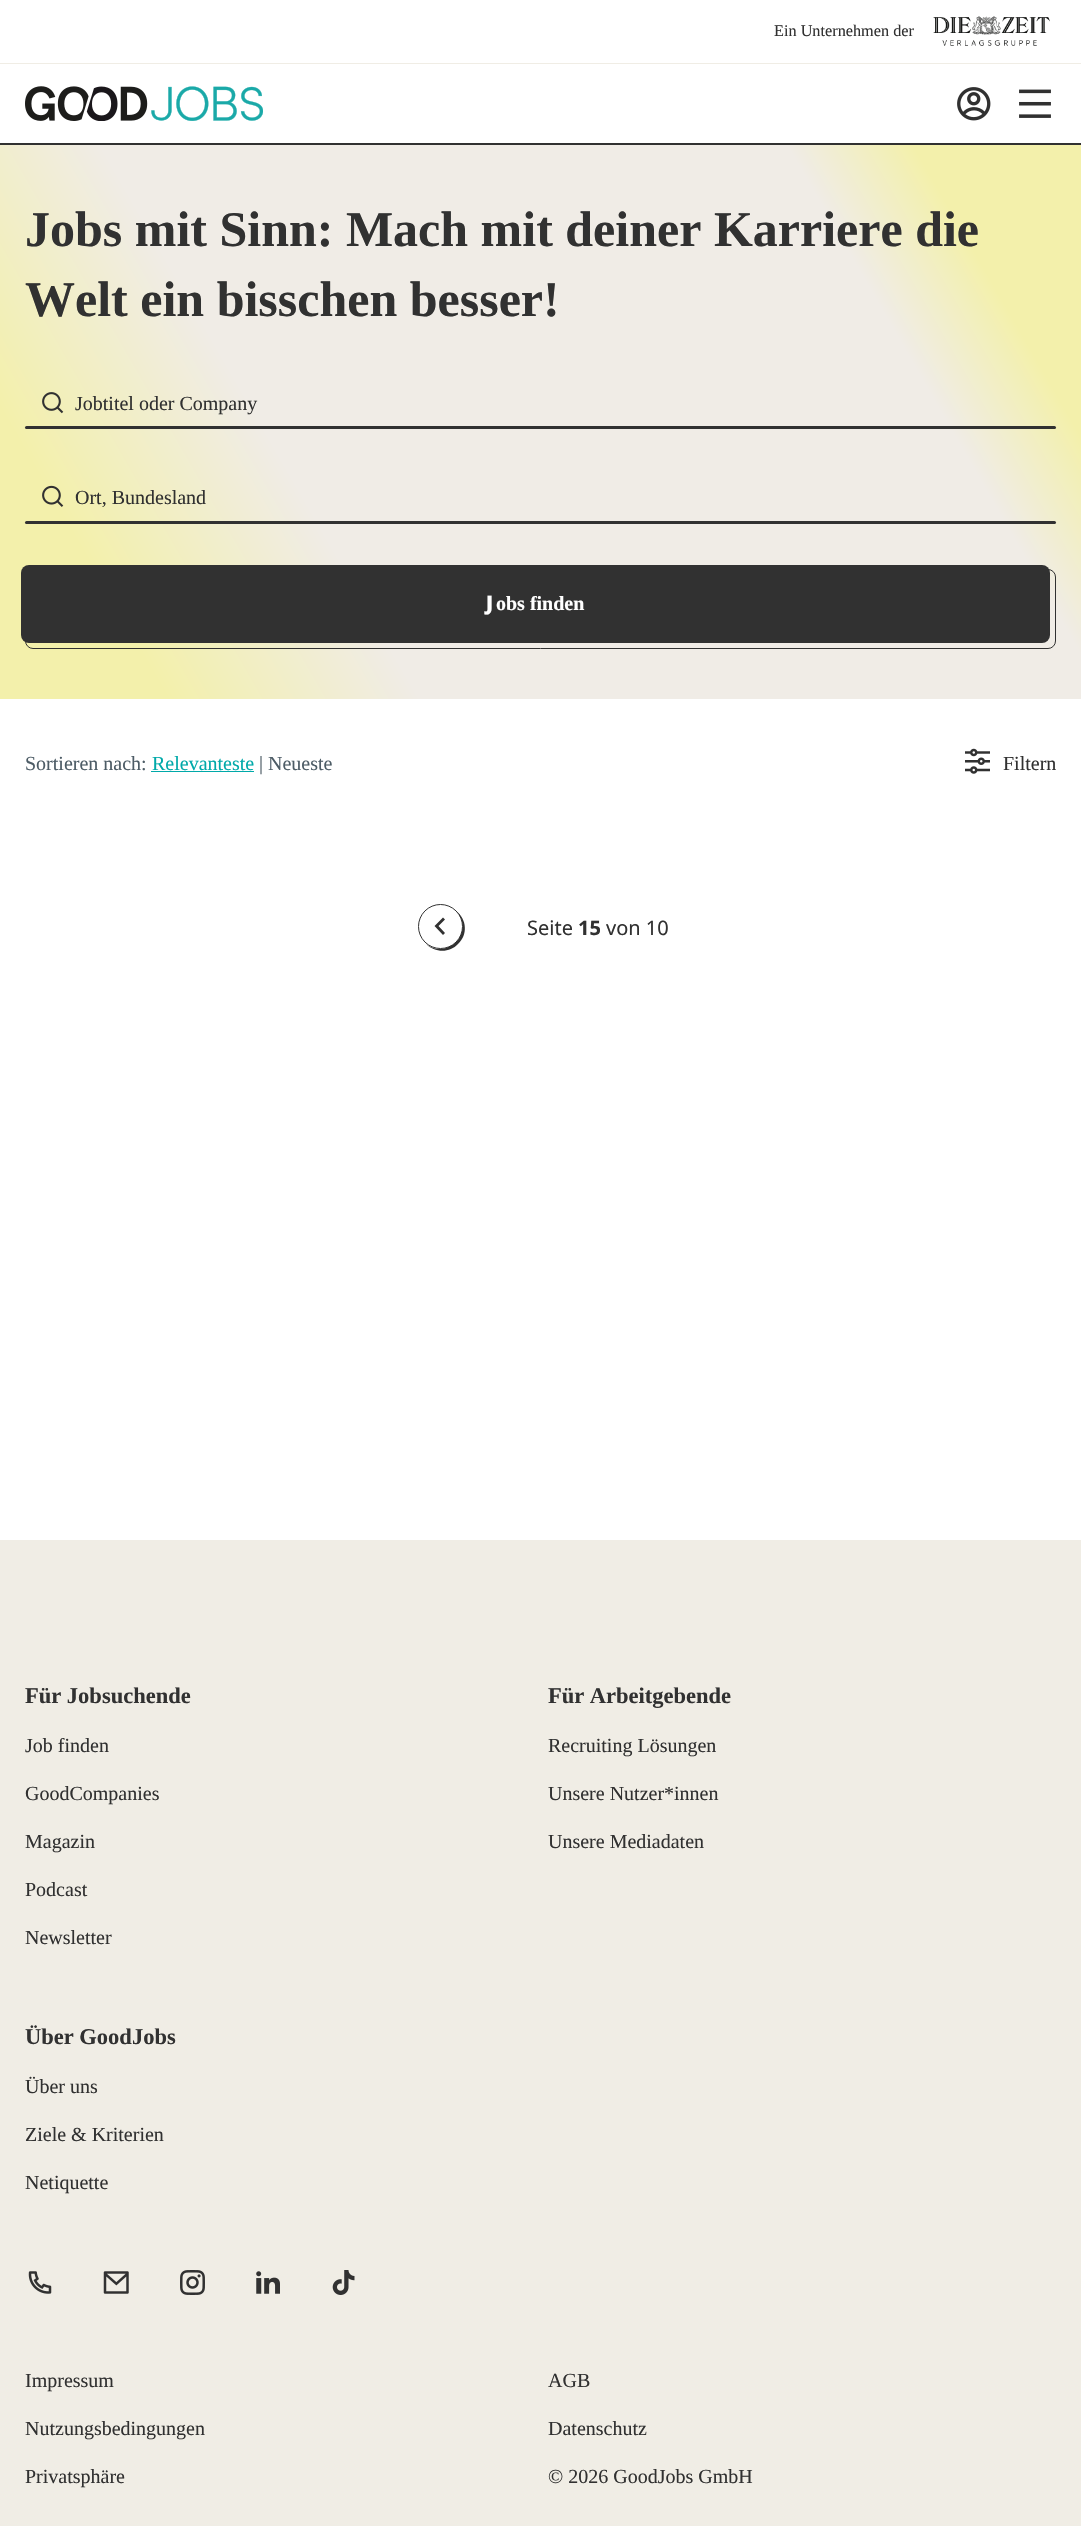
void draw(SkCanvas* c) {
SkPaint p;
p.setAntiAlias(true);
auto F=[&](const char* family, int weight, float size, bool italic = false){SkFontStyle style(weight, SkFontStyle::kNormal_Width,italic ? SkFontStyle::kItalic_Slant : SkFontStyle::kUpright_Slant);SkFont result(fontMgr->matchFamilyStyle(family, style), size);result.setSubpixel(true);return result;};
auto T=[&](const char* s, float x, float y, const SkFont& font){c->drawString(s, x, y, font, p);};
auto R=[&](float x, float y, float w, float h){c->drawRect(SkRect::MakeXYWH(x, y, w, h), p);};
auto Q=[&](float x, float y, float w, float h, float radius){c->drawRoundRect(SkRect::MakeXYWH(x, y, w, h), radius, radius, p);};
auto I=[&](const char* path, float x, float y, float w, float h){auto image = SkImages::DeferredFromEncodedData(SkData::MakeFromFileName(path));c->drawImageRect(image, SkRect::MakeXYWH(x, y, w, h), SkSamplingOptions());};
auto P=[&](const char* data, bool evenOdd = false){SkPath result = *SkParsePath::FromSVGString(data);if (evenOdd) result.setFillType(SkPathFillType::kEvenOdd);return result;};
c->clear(0xffffffff);
auto f1 = F("Liberation Serif",400,16.25);
p.setColor(0xff313131);
T("Ein Unternehmen der",774,36,f1);
I("1.png",933,16,117,30);
p.setColor(0xfff0ede5);
R(0,63,1081,1);
p.setColor(0xff313131);
R(0,143,1081,2);
I("2.png",25,86,238,35);
I("3.png",957,87,34,34);
I("4.png",1019,89,32,29);
{
const SkColor colors[] = {0xfff3f0ab,0xfff3f0ab,0xfff0ece6,0xfff0ece6,0xfff3f0ab,0xfff3f0ab};
const float stops[] = {0,.12,.21,.7,.88,1};
const SkPoint ends[] = {{1066,119}, {15,725}};
p.setShader(SkGradientShader::MakeLinear(ends, colors, stops, 6, SkTileMode::kClamp));
p.setAlpha(255);
}
R(0,145,1081,554);
auto f2 = F("Liberation Serif",700,50);
p.setShader(nullptr);
p.setColor(0xff313131);
T("Jobs mit Sinn: Mach mit deiner Karriere die",25,246,f2);
T("Welt ein bisschen besser!",25,316,f2);
I("5.png",42,392,22,22);
auto f3 = F("Liberation Serif",400,20);
T("Jobtitel oder Company",75,410,f3);
Q(25,426,1031,3,1.5);
I("6.png",42,485,22,22);
T("Ort, Bundesland",75,504,f3);
Q(25,521,1031,3,1.5);
p.setStroke(true);
p.setStrokeWidth(1);
c->drawRoundRect(SkRect::MakeXYWH(25.5,569.5,1030,79),7.5,7.5,p);
p.setStroke(false);
Q(21,565,1029,78,8);
auto f4 = F("Noto Sans",900,20);
p.setColor(0xffffffff);
T("J",486,610,f4);
auto f5 = F("Liberation Serif",700,20);
T("obs finden",496,610,f5);
p.setColor(0xff4d5c66);
T("Sortieren nach:",25,770,f3);
p.setColor(0xff00a9a9);
T("Relevanteste",152,770,f3);
R(151,771,103,1);
p.setColor(0xff4d5c66);
T("| Neueste",259,770,f3);
I("7.png",965,748,25,26);
p.setColor(0xff313131);
T("Filtern",1003,770,f3);
c->drawPath(P("M426 944c9 9 24 9 32 0c10-9 9-25-2-33c19 20-8 50-30 33z"),p);
p.setColor(0xffffffff);
c->drawCircle(440.5,926.5,22,p);
p.setStroke(true);
p.setColor(0xff313131);
c->drawCircle(440.5,926.5,22,p);
p.setStroke(false);
c->drawPath(P("M438.5 926l6.5 7l-2 2l-8.5-9l8.5-8.5l2 2z"),p);
auto f6 = F("Noto Sans",400,20);
T("Seite",527,935,f6);
auto f7 = F("Noto Sans",700,20);
T("15",578,935,f7);
T("von 10",606,935,f6);
p.setColor(0xfff0ede5);
R(0,1540,1081,986);
auto f8 = F("Liberation Serif",700,22.5);
p.setColor(0xff313131);
T("Für Jobsuchende",25,1703,f8);
T("Job finden",25,1752,f3);
T("GoodCompanies",25,1800,f3);
T("Magazin",25,1848,f3);
T("Podcast",25,1896,f3);
T("Newsletter",25,1944,f3);
T("Für Arbeitgebende",548,1703,f8);
T("Recruiting Lösungen",548,1752,f3);
T("Unsere Nutzer*innen",548,1800,f3);
T("Unsere Mediadaten",548,1848,f3);
T("Über GoodJobs",25,2044,f8);
T("Über uns",25,2093,f3);
T("Ziele & Kriterien",25,2141,f3);
T("Netiquette",25,2189,f3);
I("8.png",28,2271,24,23);
I("9.png",103,2271,26,23);
I("10.png",180,2270,25,25);
I("11.png",256,2271,24,23);
I("12.png",332,2270,23,25);
T("Impressum",25,2387,f3);
T("AGB",548,2387,f3);
T("Nutzungsbedingungen",25,2435,f3);
T("Datenschutz",548,2435,f3);
T("Privatsphäre",25,2483,f3);
T("© 2026 GoodJobs GmbH",548,2483,f3);
}
